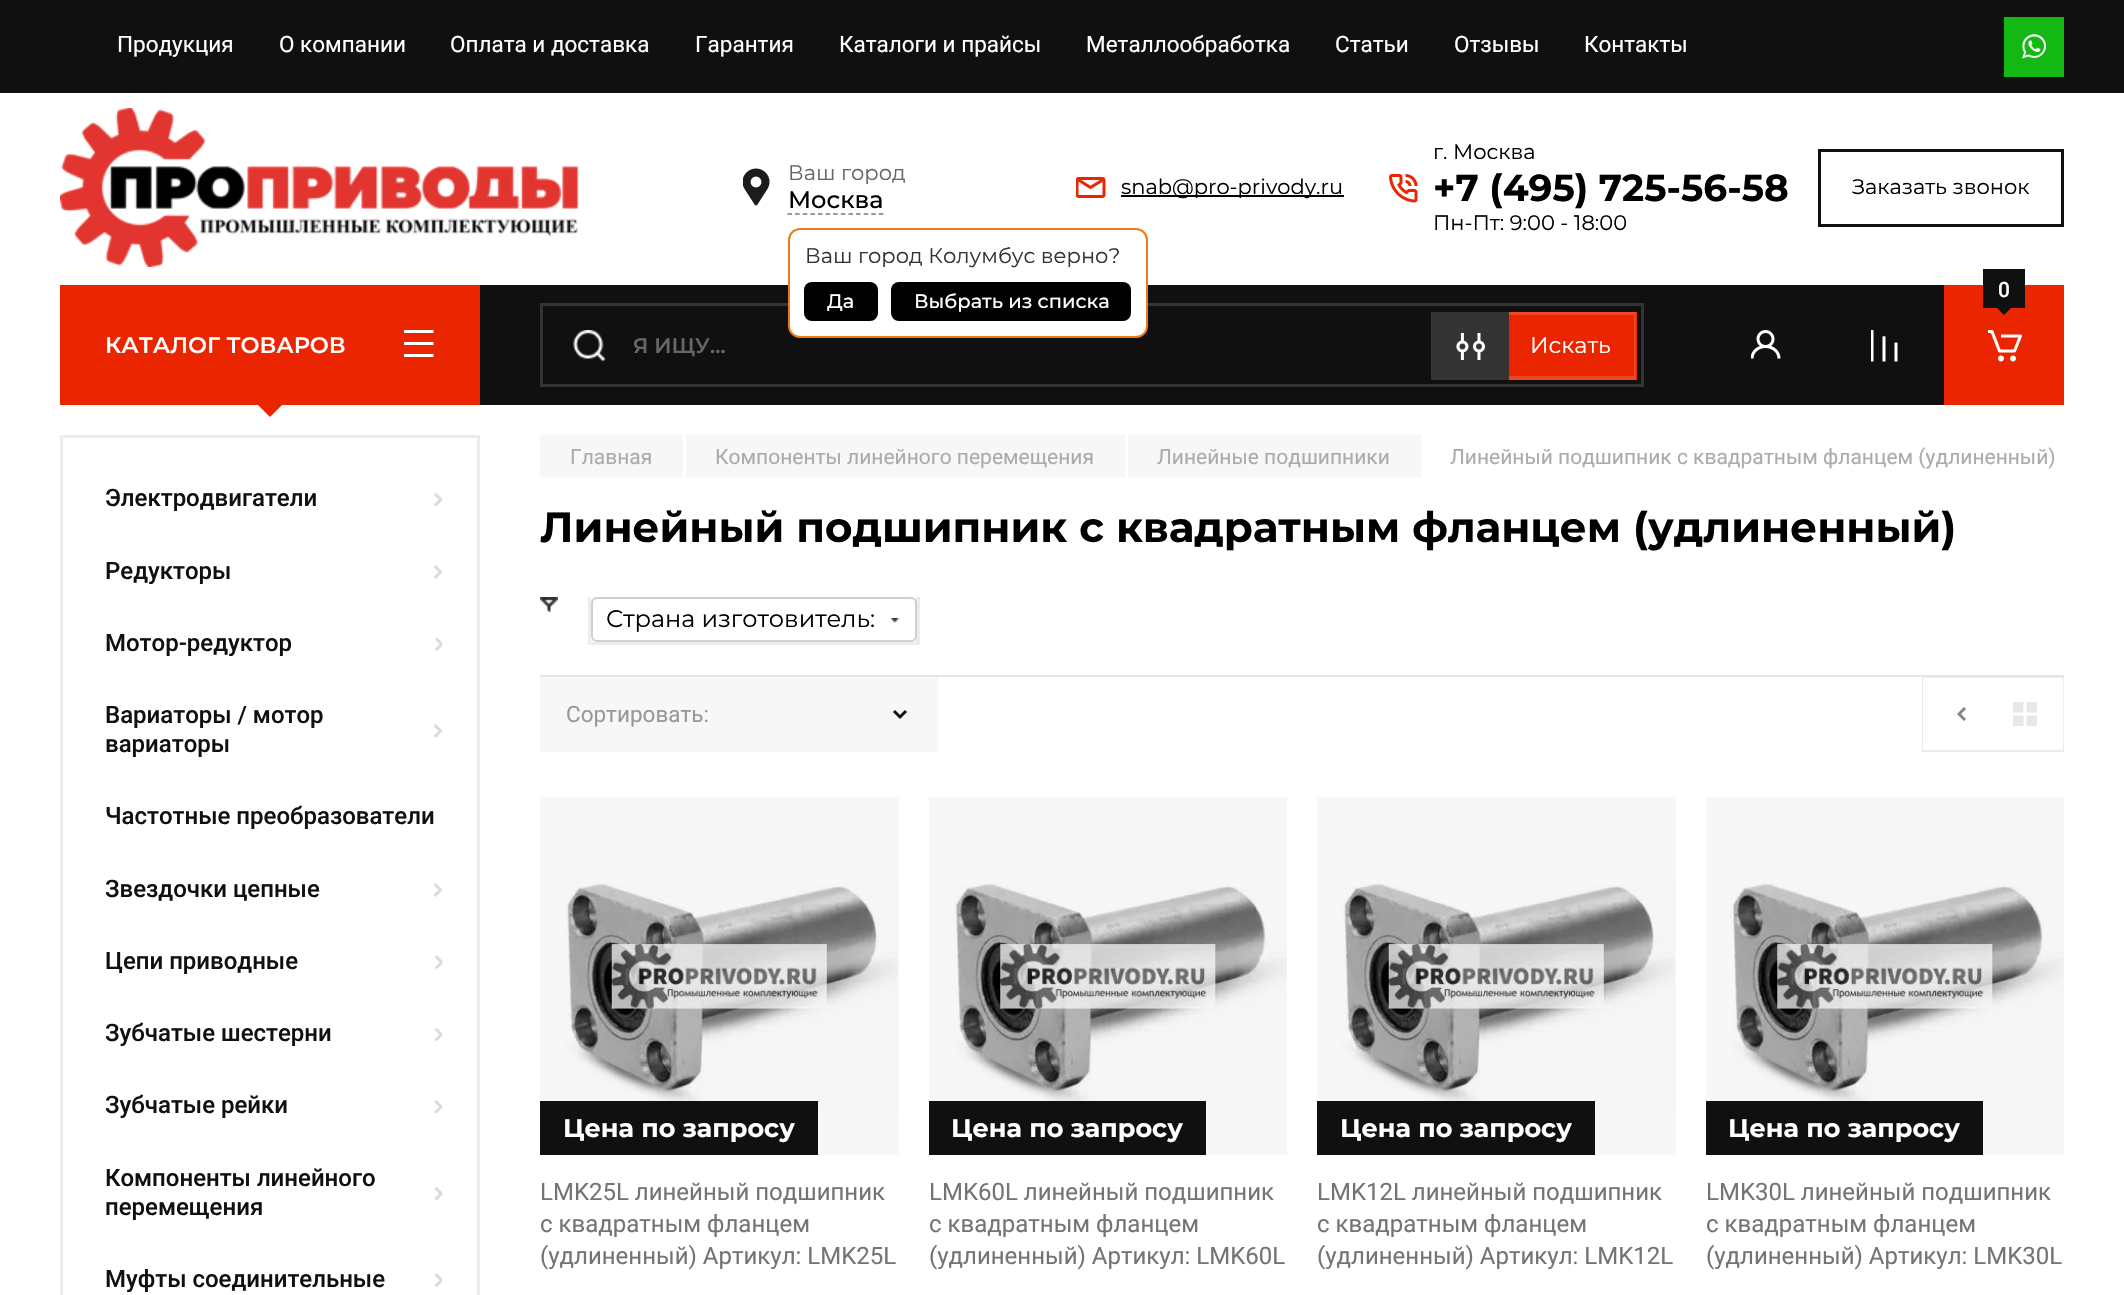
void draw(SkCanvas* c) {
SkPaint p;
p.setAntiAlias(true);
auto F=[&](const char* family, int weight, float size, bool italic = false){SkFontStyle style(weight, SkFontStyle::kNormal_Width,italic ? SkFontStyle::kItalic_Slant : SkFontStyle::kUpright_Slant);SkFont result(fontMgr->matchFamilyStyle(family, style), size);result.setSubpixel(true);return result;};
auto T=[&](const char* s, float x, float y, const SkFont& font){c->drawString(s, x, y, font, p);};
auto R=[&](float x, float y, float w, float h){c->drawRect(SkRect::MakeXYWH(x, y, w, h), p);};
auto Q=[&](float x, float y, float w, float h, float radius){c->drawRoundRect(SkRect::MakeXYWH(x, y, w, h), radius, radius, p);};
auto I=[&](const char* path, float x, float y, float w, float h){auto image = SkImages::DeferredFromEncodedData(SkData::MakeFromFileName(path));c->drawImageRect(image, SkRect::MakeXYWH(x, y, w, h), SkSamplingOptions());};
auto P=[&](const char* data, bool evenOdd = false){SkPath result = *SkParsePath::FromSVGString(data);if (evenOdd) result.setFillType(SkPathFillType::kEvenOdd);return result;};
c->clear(0xff101010);
auto f1 = F("Roboto",400,22.5);
p.setColor(0xffffffff);
T("Продукция",117,52,f1);
T("О компании",279,52,f1);
T("Оплата и доставка",450,52,f1);
T("Гарантия",695,52,f1);
T("Каталоги и прайсы",839,52,f1);
T("Металлообработка",1086,52,f1);
T("Статьи",1335,52,f1);
T("Отзывы",1454,52,f1);
T("Контакты",1584,52,f1);
I("1.png",2004,17,60,60);
R(0,93,2124,1202);
p.setColor(0xfff7f7f7);
R(1706,797,358,358);
R(1317,797,359,358);
R(929,797,358,358);
R(540,797,359,358);
I("2.png",60,108,520,159);
I("3.png",743,168,27,38);
auto f2 = F("Montserrat",400,21);
p.setColor(0xff666666);
T("Ваш город",788,180,f2);
auto f3 = F("Montserrat",500,24);
p.setColor(0xff000000);
T("Москва",788,208,f3);
p.setStroke(true);
p.setStrokeWidth(1.5);
p.setColor(0xff777777);
p.setPathEffect(SkDashPathEffect::Make({{4.5f,3.12f}}, 0));
c->drawPath(P("M787.5 214h96"),p);
p.setPathEffect(nullptr);
p.setStroke(false);
p.setColor(0xff101010);
R(480,285,1464,120);
I("9.png",573,330,33,32);
p.setStroke(true);
p.setStrokeWidth(3);
p.setColor(0xff343434);
c->drawRect(SkRect::MakeXYWH(541.5,304.5,1101,81),p);
p.setStroke(false);
p.setColor(0xffffffff);
c->drawRoundRect(SkRect::MakeXYWH(789,229,358,108),11,11,p);
p.setStroke(true);
p.setStrokeWidth(2);
p.setColor(0xffee7c16);
c->drawRoundRect(SkRect::MakeXYWH(789,229,358,108),11,11,p);
p.setStroke(false);
p.setColor(0xff333333);
T("Ваш город Колумбус верно?",805,263,f2);
p.setColor(0xff000000);
Q(804,282,74,39,8);
auto f4 = F("Montserrat",500,19.5);
p.setColor(0xffffffff);
T("Да",827,308,f4);
p.setColor(0xff000000);
Q(891,282,240,39,8);
p.setColor(0xffffffff);
T("Выбрать из списка",914,308,f4);
I("4.png",1076,177,30,21);
p.setColor(0xff000000);
R(1121,195,223,2);
T("snab@pro-privody.ru",1121,194,f2);
I("5.png",1389,174,29,29);
T("г. Москва",1433,159,f2);
auto f5 = F("Montserrat",700,37.5);
T("+7 (495) 725-56-58",1433,201,f5);
T("Пн-Пт: 9:00 - 18:00",1433,230,f2);
p.setStroke(true);
p.setStrokeWidth(3);
p.setColor(0xff101010);
c->drawRect(SkRect::MakeXYWH(1819.5,150.5,243,75),p);
p.setStroke(false);
p.setColor(0xff000000);
T("Заказать звонок",1852,194,f2);
p.setColor(0xffeb2500);
R(1944,285,120,120);
p.setColor(0xff101010);
R(1983,269,42,39);
auto f6 = F("Roboto",500,21);
p.setColor(0xffffffff);
T("0",1998,297,f6);
p.setColor(0xff101010);
c->drawPath(P("M1996.5 307.5h15l-7.5 7.5z"),p);
I("6.png",1988,330,34,32);
p.setColor(0xffeb2500);
R(60,285,420,120);
auto f7 = F("Montserrat",600,22.5);
p.setColor(0xffffffff);
T("КАТАЛОГ ТОВАРОВ",105,353,f7);
I("7.png",404,330,30,27);
p.setColor(0xffeb2500);
c->drawPath(P("M270 417l-12-12h24z",true),p);
R(1509,312,128,68);
p.setColor(0xffee4626);
c->drawPath(P("M1508 312h128l-2 3h-126z"),p);
p.setColor(0x26ffffff);
c->drawPath(P("M1636 312v68l-2-4v-61z"),p);
c->drawPath(P("M1636 380h-128v-4h126z"),p);
p.setColor(0xff343434);
R(1431,312,78,68);
I("8.png",1456,333,29,27);
auto f8 = F("Montserrat",600,21);
p.setColor(0xff666666);
T("Я ИЩУ…",633,353,f8);
auto f9 = F("Montserrat",400,22.5);
p.setColor(0xffffffff);
T("Искать",1530,353,f9);
I("10.png",1751,330,30,29);
I("11.png",1871,330,27,32);
p.setStroke(true);
p.setColor(0xffececec);
c->drawRect(SkRect::MakeXYWH(61.5,436.5,417,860),p);
auto f10 = F("Roboto",500,24);
p.setStroke(false);
p.setColor(0xff101010);
T("Электродвигатели",105,506,f10);
I("12.png",434,493,9,14);
T("Редукторы",105,579,f10);
I("13.png",434,565,8,14);
T("Мотор-редуктор",105,651,f10);
I("14.png",435,637,8,14);
T("Вариаторы / мотор",105,723,f10);
I("15.png",434,724,8,14);
T("вариаторы",105,752,f10);
T("Частотные преобразователи",105,824,f10);
T("Звездочки цепные",105,897,f10);
I("15.png",434,883,8,14);
T("Цепи приводные",105,969,f10);
I("16.png",435,955,8,14);
T("Зубчатые шестерни",105,1041,f10);
I("17.png",434,1027,9,15);
T("Зубчатые рейки",105,1113,f10);
I("18.png",434,1100,9,14);
T("Компоненты линейного",105,1186,f10);
I("19.png",434,1186,9,15);
T("перемещения",105,1215,f10);
T("Муфты соединительные",105,1287,f10);
I("20.png",435,1273,8,14);
p.setColor(0xfff7f7f7);
R(540,435,143,42);
auto f11 = F("Roboto",400,21);
p.setColor(0xffababab);
T("Главная",570,464,f11);
p.setColor(0xfff7f7f7);
R(686,435,439,42);
p.setColor(0xffababab);
T("Компоненты линейного перемещения",715,464,f11);
p.setColor(0xfff7f7f7);
R(1128,435,293,42);
p.setColor(0xffababab);
T("Линейные подшипники",1157,464,f11);
T("Линейный подшипник с квадратным фланцем (удлиненный)",1450,464,f11);
auto f12 = F("Montserrat",700,42);
p.setColor(0xff000000);
T("Линейный подшипник с квадратным фланцем (удлиненный)",540,542,f12);
I("21.png",540,597,18,15);
p.setColor(0xffe5e5e5);
R(540,675,1524,2);
p.setColor(0xffececec);
c->drawPath(P("M920 597v48l-4-3v-45z"),p);
p.setColor(0x14101010);
c->drawPath(P("M920 645h-332l3-3h325z"),p);
c->drawPath(P("M588 645v-48h3v45z"),p);
p.setColor(0xffffffff);
c->drawRoundRect(SkRect::MakeXYWH(592,598,324,43),5,5,p);
p.setStroke(true);
p.setStrokeWidth(2);
p.setColor(0xffd0d0d0);
c->drawRoundRect(SkRect::MakeXYWH(592,598,324,43),5,5,p);
auto f13 = F("Montserrat",400,24);
p.setStroke(false);
p.setColor(0xff000000);
T("Страна изготовитель:",606,627,f13);
I("22.png",891,618,8,5);
p.setColor(0xfff7f7f7);
R(540,677,398,75);
p.setColor(0xff989898);
T("Сортировать:",566,722,f1);
p.setStroke(true);
p.setStrokeWidth(3);
p.setColor(0xff101010);
c->drawPath(P("M906 711l-6 6l-6-6"),p);
p.setStrokeWidth(2);
p.setColor(0xffececec);
c->drawRect(SkRect::MakeXYWH(1923,678,140,73),p);
p.setStroke(false);
p.setColor(0xffffffff);
R(1923,678,75,72);
I("23.png",1957,707,9,14);
R(1998,678,54,1);
I("24.png",2013,702,24,24);
R(2052,678,11,72);
I("25.png",565,883,333,226);
p.setColor(0xff101010);
R(540,1101,278,54);
auto f14 = F("Montserrat",700,25.5);
p.setColor(0xffffffff);
T("Цена по запросу",563,1137,f14);
auto f15 = F("Roboto",400,24);
p.setColor(0xff747474);
T("LMK25L линейный подшипник",540,1200,f15);
T("с квадратным фланцем",540,1232,f15);
T("(удлиненный) Артикул: LMK25L",540,1264,f15);
I("26.png",953,883,334,226);
p.setColor(0xff101010);
R(929,1101,277,54);
p.setColor(0xffffffff);
T("Цена по запросу",951,1137,f14);
p.setColor(0xff747474);
T("LMK60L линейный подшипник",929,1200,f15);
T("с квадратным фланцем",929,1232,f15);
T("(удлиненный) Артикул: LMK60L",929,1264,f15);
I("25.png",1342,883,333,226);
p.setColor(0xff101010);
R(1317,1101,278,54);
p.setColor(0xffffffff);
T("Цена по запросу",1340,1137,f14);
p.setColor(0xff747474);
T("LMK12L линейный подшипник",1317,1200,f15);
T("с квадратным фланцем",1317,1232,f15);
T("(удлиненный) Артикул: LMK12L",1317,1264,f15);
I("26.png",1730,883,334,226);
p.setColor(0xff101010);
R(1706,1101,277,54);
p.setColor(0xffffffff);
T("Цена по запросу",1728,1137,f14);
p.setColor(0xff747474);
T("LMK30L линейный подшипник",1706,1200,f15);
T("с квадратным фланцем",1706,1232,f15);
T("(удлиненный) Артикул: LMK30L",1706,1264,f15);
}
